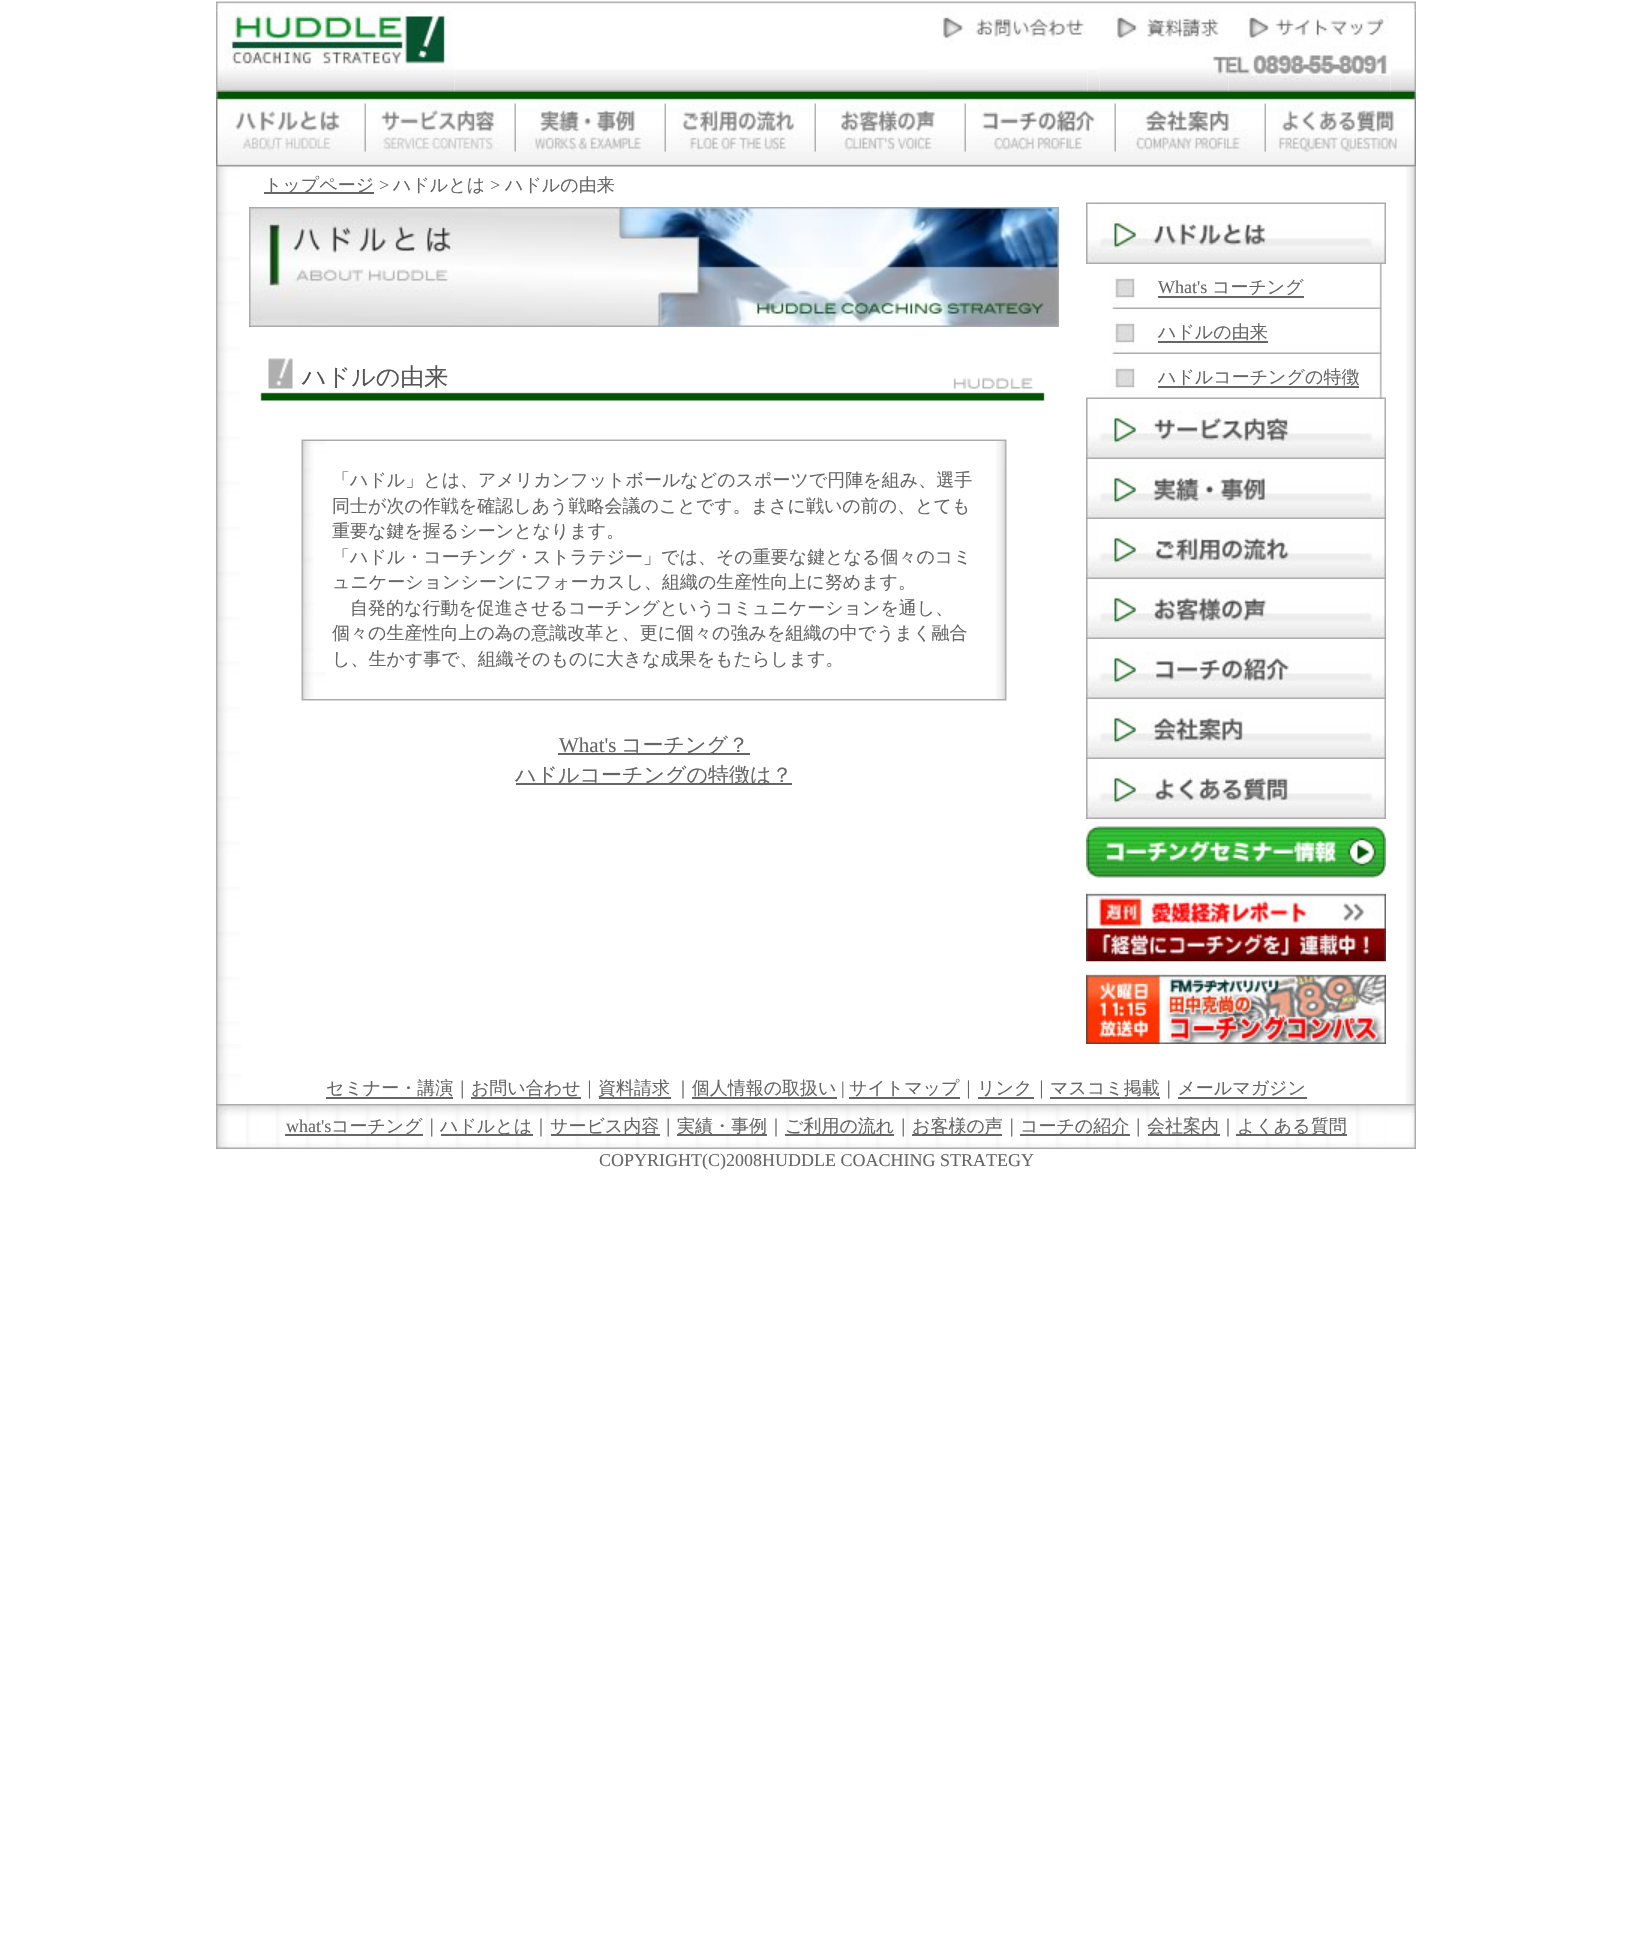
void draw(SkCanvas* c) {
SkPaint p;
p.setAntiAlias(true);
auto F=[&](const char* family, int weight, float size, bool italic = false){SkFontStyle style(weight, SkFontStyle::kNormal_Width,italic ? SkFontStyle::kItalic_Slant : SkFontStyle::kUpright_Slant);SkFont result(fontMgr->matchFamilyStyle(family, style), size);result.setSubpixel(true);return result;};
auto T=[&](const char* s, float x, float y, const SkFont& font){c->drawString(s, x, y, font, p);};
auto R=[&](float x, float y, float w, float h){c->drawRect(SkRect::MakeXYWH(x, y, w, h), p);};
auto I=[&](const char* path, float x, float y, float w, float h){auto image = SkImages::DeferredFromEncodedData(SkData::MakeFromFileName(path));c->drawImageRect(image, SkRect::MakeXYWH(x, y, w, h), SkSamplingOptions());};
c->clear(0xffffffff);
I("1.png",216,1,1200,10);
I("2.png",216,10,9,82);
I("3.png",225,10,230,71);
I("4.png",942,11,144,34);
I("5.png",1113,10,106,35);
I("6.png",1245,11,144,34);
I("7.png",1390,10,26,82);
I("8.png",454,69,476,23);
I("9.png",1087,69,13,23);
I("10.png",1228,47,17,45);
I("11.png",225,81,230,11);
I("12.png",930,69,158,23);
I("13.png",1099,56,130,36);
I("14.png",1245,45,146,47);
I("23.png",216,166,24,878);
I("15.png",216,91,150,76);
I("16.png",366,91,150,76);
I("17.png",516,91,150,76);
I("18.png",666,91,150,76);
I("19.png",816,91,150,76);
I("20.png",966,91,150,76);
I("21.png",1116,91,150,76);
I("46.png",1406,166,10,878);
I("22.png",1266,91,150,76);
p.setColor(0xff666666);
R(264,192,110,2);
auto f1 = F("WenQuanYi Zen Hei",500,18);
T("トップページ",264,191,f1);
auto f2 = F("Liberation Serif",400,18);
T(">",379,191,f2);
T("ハドルとは",393,191,f1);
T(">",490,191,f2);
T("ハドルの由来",505,191,f1);
I("24.png",1086,202,300,2);
I("25.png",1086,204,300,60);
I("26.png",1111,264,271,45);
T("What's",1158,293,f2);
R(1158,296,146,2);
T("コーチング",1212,293,f1);
I("26.png",1111,309,271,45);
T("ハドルの由来",1158,338,f1);
R(1158,341,110,2);
I("27.png",1086,354,300,45);
T("ハドルコーチングの特徴",1158,383,f1);
R(1158,386,201,2);
I("28.png",1086,399,300,60);
I("29.png",1086,459,300,60);
I("30.png",1086,519,300,60);
I("31.png",1086,579,300,60);
I("32.png",1086,639,300,60);
I("33.png",1086,699,300,60);
I("34.png",1086,759,300,60);
I("35.png",1086,819,300,60);
I("36.png",1086,891,300,71);
I("37.png",1086,961,300,83);
I("38.png",249,207,810,120);
I("39.png",260,358,785,43);
auto f3 = F("WenQuanYi Zen Hei",500,24);
p.setColor(0xff555555);
T("ハドルの由来",302,385,f3);
I("40.png",301,439,706,2);
I("41.png",301,441,25,27);
I("42.png",996,441,11,27);
I("43.png",301,468,13,204);
p.setColor(0xff666666);
T("「ハドル」とは、アメリカンフットボールなどのスポーツで円陣を組み、選手",332,486,f1);
T("同士が次の作戦を確認しあう戦略会議のことです。まさに戦いの前の、とても",332,512,f1);
T("重要な鍵を握るシーンとなります。",332,537,f1);
T("「ハドル・コーチング・ストラテジー」では、その重要な鍵となる個々のコミ",332,563,f1);
T("ュニケーションシーンにフォーカスし、組織の生産性向上に努めます。",332,588,f1);
T("自発的な行動を促進させるコーチングというコミュニケーションを通し、",350,614,f1);
T("個々の生産性向上の為の意識改革と、更に個々の強みを組織の中でうまく融合",332,639,f1);
T("し、生かす事で、組織そのものに大きな成果をもたらします。",332,665,f1);
I("44.png",996,468,11,204);
I("41.png",301,672,25,27);
I("42.png",996,672,11,27);
I("45.png",301,699,706,2);
auto f4 = F("Liberation Serif",400,21);
T("What's",559,752,f4);
R(558,753,192,2);
auto f5 = F("WenQuanYi Zen Hei",500,21);
T("コーチング？",621,752,f5);
R(516,783,276,2);
T("ハドルコーチングの特徴は？",515,782,f5);
I("47.png",216,1044,25,30);
I("48.png",1405,1044,11,30);
I("47.png",216,1074,25,30);
R(326,1097,127,2);
T("セミナー・講演｜お問い合わせ｜",326,1094,f1);
R(599,1097,72,2);
T("資料請求",598,1094,f1);
T("｜個人情報の取扱い",674,1094,f1);
T("|",841,1094,f2);
R(849,1097,111,2);
T("サイトマップ｜リンク｜マスコミ掲載｜メールマガジン",849,1094,f1);
R(471,1097,110,2);
R(692,1097,145,2);
R(978,1097,56,2);
R(1050,1097,110,2);
R(1178,1097,129,2);
I("48.png",1405,1074,11,30);
I("49.png",216,1104,30,45);
I("50.png",246,1104,1140,45);
T("what's",286,1132,f2);
R(285,1134,138,2);
T("コーチング｜",331,1132,f1);
R(441,1134,92,2);
T("ハドルとは｜",440,1132,f1);
R(551,1134,109,2);
T("サービス内容｜",550,1132,f1);
R(677,1134,90,2);
T("実績・事例｜",677,1132,f1);
R(785,1134,109,2);
T("ご利用の流れ｜",785,1132,f1);
R(912,1134,90,2);
T("お客様の声｜",912,1132,f1);
R(1020,1134,110,2);
T("コーチの紹介｜",1020,1132,f1);
R(1148,1134,72,2);
T("会社案内｜",1147,1132,f1);
R(1236,1134,111,2);
T("よくある質問",1237,1132,f1);
I("51.png",1386,1104,30,45);
T("COPYRIGHT(C)2008HUDDLE COACHING STRATEGY",599,1166,f2);
}
